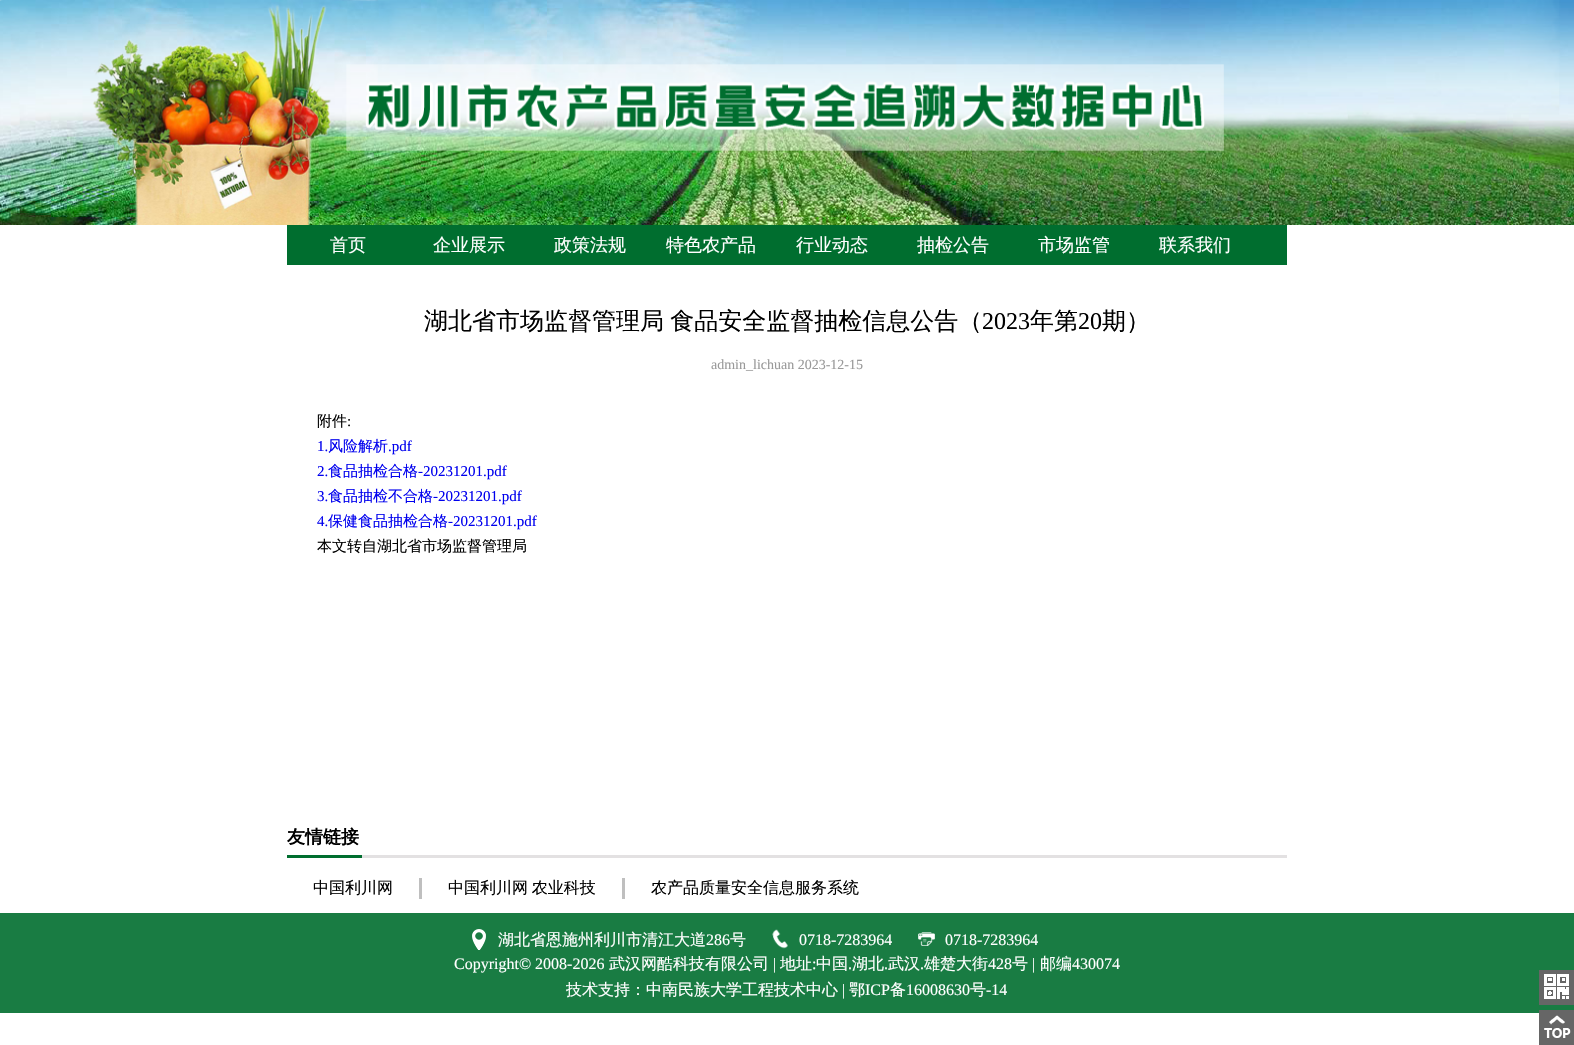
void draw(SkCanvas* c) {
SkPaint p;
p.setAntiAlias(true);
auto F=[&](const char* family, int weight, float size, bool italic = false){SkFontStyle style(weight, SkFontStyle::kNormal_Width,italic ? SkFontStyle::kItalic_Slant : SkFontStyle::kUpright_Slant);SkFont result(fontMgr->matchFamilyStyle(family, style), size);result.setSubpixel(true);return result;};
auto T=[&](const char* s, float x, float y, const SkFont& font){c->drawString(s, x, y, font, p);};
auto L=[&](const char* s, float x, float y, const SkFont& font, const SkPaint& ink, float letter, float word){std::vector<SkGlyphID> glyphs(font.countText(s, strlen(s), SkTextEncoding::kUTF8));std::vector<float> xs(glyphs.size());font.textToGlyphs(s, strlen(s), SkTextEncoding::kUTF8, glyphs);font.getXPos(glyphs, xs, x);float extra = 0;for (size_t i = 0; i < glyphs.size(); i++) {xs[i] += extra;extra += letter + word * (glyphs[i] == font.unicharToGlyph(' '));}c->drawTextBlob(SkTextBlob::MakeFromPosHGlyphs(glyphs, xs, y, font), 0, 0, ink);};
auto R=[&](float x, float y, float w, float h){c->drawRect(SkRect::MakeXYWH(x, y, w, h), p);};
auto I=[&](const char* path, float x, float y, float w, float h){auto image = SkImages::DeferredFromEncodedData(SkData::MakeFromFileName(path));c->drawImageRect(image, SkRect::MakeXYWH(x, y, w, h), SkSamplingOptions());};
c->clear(0xffffffff);
I("1.png",0,0,1574,225);
p.setColor(0xff006e2f);
R(287,225,1000,40);
auto f1 = F("WenQuanYi Zen Hei",500,18);
p.setColor(0xffffffff);
T("首页",330,251,f1);
T("企业展示",433,251,f1);
T("政策法规",554,251,f1);
T("特色农产品",666,251,f1);
T("行业动态",796,251,f1);
T("抽检公告",917,251,f1);
T("市场监管",1038,251,f1);
T("联系我们",1159,251,f1);
auto f2 = F("WenQuanYi Zen Hei",500,24);
p.setColor(0xff000000);
L("湖北省市场监督管理局 食品安全监督抽检信息公告（",424,329,f2,p,0,-1);
auto f3 = F("Liberation Serif",400,24);
T("2023",982,329,f3);
T("年第",1030,329,f2);
T("20",1078,329,f3);
T("期）",1102,329,f2);
auto f4 = F("Liberation Serif",400,14);
p.setColor(0xff999999);
T("admin_lichuan 2023-12-15",711,369,f4);
auto f5 = F("WenQuanYi Zen Hei",500,15);
p.setColor(0xff000000);
T("附件",317,426,f5);
auto f6 = F("Liberation Serif",400,15);
T(":",347,426,f6);
p.setColor(0xff0000ee);
T("1.",317,451,f6);
T("风险解析",328,451,f5);
T(".pdf",388,451,f6);
T("2.",317,476,f6);
T("食品抽检合格",328,476,f5);
T("-20231201.pdf",418,476,f6);
T("3.",317,501,f6);
T("食品抽检不合格",328,501,f5);
T("-20231201.pdf",433,501,f6);
T("4.",317,526,f6);
T("保健食品抽检合格",328,526,f5);
T("-20231201.pdf",448,526,f6);
p.setColor(0xff000000);
T("本文转自湖北省市场监督管理局",317,551,f5);
p.setColor(0xffe3e1e2);
R(362,855,925,3);
p.setColor(0xff006e2f);
R(287,855,75,3);
auto f7 = F("WenQuanYi Zen Hei",700,18);
p.setColor(0xff000000);
T("友情链接",287,843,f7);
auto f8 = F("WenQuanYi Zen Hei",500,16);
T("中国利川网",313,893,f8);
p.setColor(0xffbfbfbf);
R(419,878,3,21);
p.setColor(0xff000000);
L("中国利川网 农业科技",448,893,f8,p,0,-1);
p.setColor(0xffbfbfbf);
R(622,878,3,21);
p.setColor(0xff000000);
T("农产品质量安全信息服务系统",651,893,f8);
p.setColor(0xff197c43);
R(0,913,1574,100);
I("2.png",472,929,14,21);
p.setColor(0xffffffff);
T("湖北省恩施州利川市清江大道",498,945,f8);
auto f9 = F("Liberation Serif",400,16);
T("286",706,945,f9);
T("号",730,945,f8);
I("3.png",772,929,16,20);
T("0718-7283964",799,945,f9);
I("4.png",918,932,17,14);
T("0718-7283964",945,945,f9);
T("Copyright© 2008-2026",454,969,f9);
T("武汉网酷科技有限公司",609,969,f8);
T("|",773,969,f9);
T("地址",780,969,f8);
T(":",812,969,f9);
T("中国",816,969,f8);
T(".",848,969,f9);
T("湖北",852,969,f8);
T(".",884,969,f9);
T("武汉",888,969,f8);
T(".",920,969,f9);
T("雄楚大街",924,969,f8);
T("428",988,969,f9);
T("号",1012,969,f8);
T("|",1032,969,f9);
T("邮编",1040,969,f8);
T("430074",1072,969,f9);
T("技术支持：中南民族大学工程技术中心",566,995,f8);
T("|",842,995,f9);
T("鄂",849,995,f8);
T("ICP",865,995,f9);
T("备",890,995,f8);
T("16008630",906,995,f9);
T("号",970,995,f8);
T("-14",986,995,f9);
p.setColor(0xff666666);
R(1539,970,35,35);
I("5.png",1544,974,25,25);
R(1539,1010,35,35);
I("6.png",1544,1015,27,23);
}
